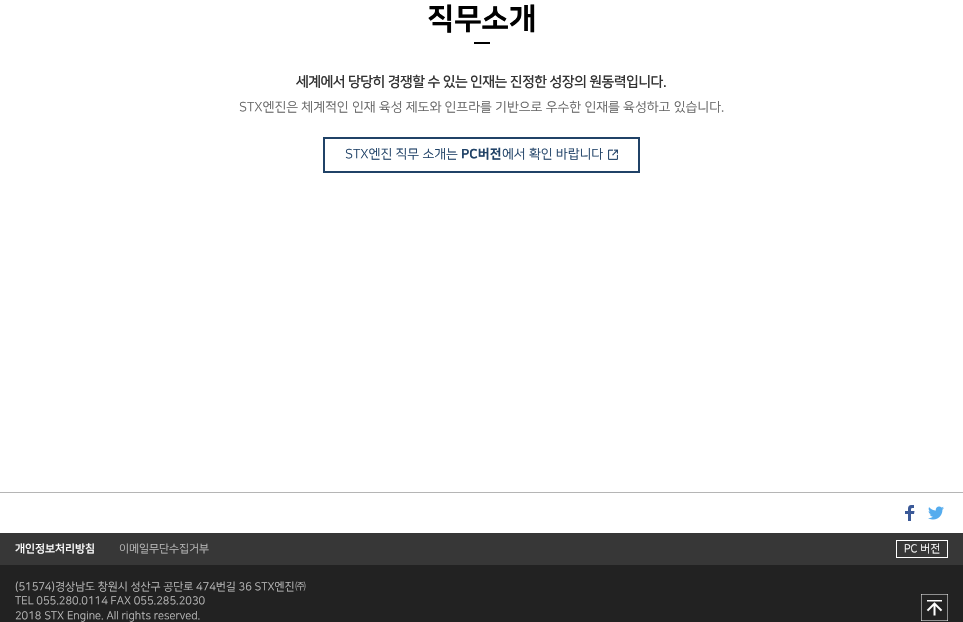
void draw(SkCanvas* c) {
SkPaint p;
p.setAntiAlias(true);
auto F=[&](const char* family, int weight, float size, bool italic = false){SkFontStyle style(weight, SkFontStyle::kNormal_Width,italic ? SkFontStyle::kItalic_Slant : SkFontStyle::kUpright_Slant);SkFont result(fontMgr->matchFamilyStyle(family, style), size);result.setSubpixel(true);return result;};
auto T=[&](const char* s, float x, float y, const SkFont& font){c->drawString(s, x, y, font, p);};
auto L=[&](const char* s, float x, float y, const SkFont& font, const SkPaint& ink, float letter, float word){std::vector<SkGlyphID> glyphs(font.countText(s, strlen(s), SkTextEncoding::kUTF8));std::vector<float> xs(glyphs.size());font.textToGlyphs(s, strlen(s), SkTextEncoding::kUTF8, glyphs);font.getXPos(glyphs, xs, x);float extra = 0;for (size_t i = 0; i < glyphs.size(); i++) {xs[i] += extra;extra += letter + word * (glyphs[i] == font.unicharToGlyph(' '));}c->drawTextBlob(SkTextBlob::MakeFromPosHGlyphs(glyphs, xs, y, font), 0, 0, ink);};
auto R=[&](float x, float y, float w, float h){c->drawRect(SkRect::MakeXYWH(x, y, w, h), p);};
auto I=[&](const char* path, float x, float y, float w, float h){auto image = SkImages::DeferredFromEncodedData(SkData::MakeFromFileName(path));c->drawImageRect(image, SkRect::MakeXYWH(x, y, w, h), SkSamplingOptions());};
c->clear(0xffffffff);
auto f1 = F("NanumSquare",800,30);
p.setColor(0xff000000);
T("직무소개",427,28,f1);
R(474,42,16,2);
auto f2 = F("NanumSquare",700,14);
p.setColor(0xff333333);
L("세계에서 당당히 경쟁할 수 있는 인재는 진정한 성장의 원동력입니다.",296,86,f2,p,-.5,0);
auto f3 = F("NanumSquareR",400,13);
p.setColor(0xff666666);
T("STX엔진은 체계적인 인재 육성 제도와 인프라를 기반으로 우수한 인재를 육성하고 있습니다.",239,111,f3);
I("1.png",608,149,10,11);
p.setStroke(true);
p.setStrokeWidth(2);
p.setColor(0xff204267);
c->drawRect(SkRect::MakeXYWH(324,138,315,34),p);
p.setStroke(false);
T("STX엔진 직무 소개는",345,158,f3);
auto f4 = F("NanumSquare",800,13);
T("PC버전",461,158,f4);
T("에서 확인 바랍니다",502,158,f3);
p.setColor(0xff222222);
R(0,565,963,57);
p.setColor(0xffb5b5b5);
R(0,492,963,1);
I("2.png",905,505,10,16);
I("3.png",928,506,16,14);
p.setColor(0xff373737);
R(0,533,963,32);
auto f5 = F("NanumSquare",700,11);
p.setColor(0xffffffff);
T("개인정보처리방침",15,552,f5);
auto f6 = F("NanumSquareR",400,11);
p.setColor(0xffbbbbbb);
T("이메일무단수집거부",119,552,f6);
p.setStroke(true);
p.setStrokeWidth(1);
p.setColor(0xffffffff);
c->drawRect(SkRect::MakeXYWH(896.5,540.5,51,17),p);
p.setStroke(false);
T("PC 버전",904,552,f6);
p.setColor(0xffbbbbbb);
T("(51574)경상남도 창원시 성산구 공단로 474번길 36 STX엔진",15,590,f6);
auto f7 = F("Dotum",400,11);
T("㈜",295,590,f7);
T("TEL 055.280.0114 FAX 055.285.2030",15,604,f6);
I("4.png",921,594,27,27);
T("2018 STX Engine. All rights reserved.",15,619,f6);
}
